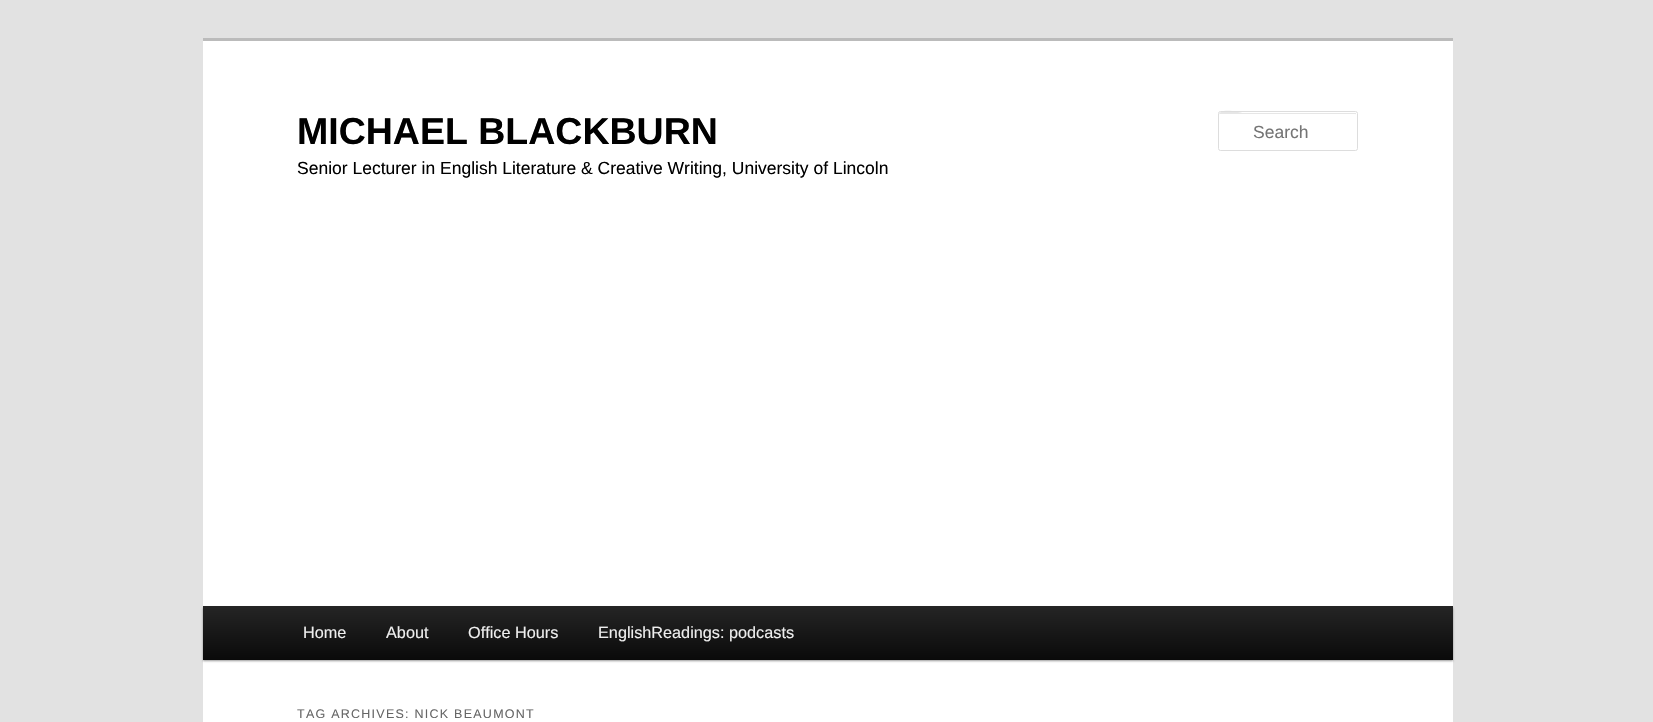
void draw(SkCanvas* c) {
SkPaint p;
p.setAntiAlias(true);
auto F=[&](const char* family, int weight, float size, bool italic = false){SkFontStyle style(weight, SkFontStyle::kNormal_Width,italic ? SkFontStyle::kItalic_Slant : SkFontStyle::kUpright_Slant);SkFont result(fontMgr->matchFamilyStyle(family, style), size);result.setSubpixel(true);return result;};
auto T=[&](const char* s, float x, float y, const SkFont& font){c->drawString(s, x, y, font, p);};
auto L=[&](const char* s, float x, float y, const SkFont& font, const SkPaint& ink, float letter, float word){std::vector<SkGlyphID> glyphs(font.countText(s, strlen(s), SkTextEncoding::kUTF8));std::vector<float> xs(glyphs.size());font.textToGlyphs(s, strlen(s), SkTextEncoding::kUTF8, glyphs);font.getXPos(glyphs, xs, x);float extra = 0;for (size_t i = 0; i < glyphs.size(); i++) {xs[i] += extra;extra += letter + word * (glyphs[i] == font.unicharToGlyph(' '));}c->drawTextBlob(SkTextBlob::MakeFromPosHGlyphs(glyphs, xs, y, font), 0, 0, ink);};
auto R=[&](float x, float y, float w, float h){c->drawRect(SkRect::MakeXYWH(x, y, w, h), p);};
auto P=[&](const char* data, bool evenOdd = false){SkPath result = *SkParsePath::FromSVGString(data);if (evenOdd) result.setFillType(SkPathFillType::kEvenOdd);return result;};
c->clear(0xffe2e2e2);
p.setColor(0xffffffff);
R(203,41,1250,681);
p.setColor(0xffbbbbbb);
R(203,38,1250,3);
auto f1 = F("Liberation Sans",700,37.5);
p.setColor(0xff000000);
T("MICHAEL BLACKBURN",297,144,f1);
auto f2 = F("Liberation Sans",400,17.5);
T("Senior Lecturer in English Literature & Creative Writing, University of Lincoln",297,174,f2);
p.setColor(0xffe6e6e6);
c->drawPath(P("M1220 114h135c1 0 1 0 1 1v-2h-114c0 0-23-6-23 2c0-1 0-1 1-1z"),p);
p.setStroke(true);
p.setStrokeWidth(1);
p.setColor(0xffdddddd);
c->drawRoundRect(SkRect::MakeXYWH(1218.5,111.5,139,39),2,2,p);
p.setStroke(false);
p.setColor(0xff757575);
T("Search",1253,138,f2);
p.setColor(0x66000000);
p.setMaskFilter(SkMaskFilter::MakeBlur(kNormal_SkBlurStyle, 1));
c->drawRect(SkRect::MakeXYWH(203,608,1250,53),p);
p.setMaskFilter(nullptr);
{
const SkColor colors[] = {0xff252525,0xff0a0a0a};
const float stops[] = {0,1};
const SkPoint ends[] = {{828,606}, {828,660}};
p.setShader(SkGradientShader::MakeLinear(ends, colors, stops, 2, SkTileMode::kClamp));
p.setAlpha(255);
}
R(203,606,1250,54);
auto f3 = F("Liberation Sans",400,16.25);
p.setShader(nullptr);
p.setColor(0xffeeeeee);
T("Home",303,638,f3);
T("About",386,638,f3);
T("Office Hours",468,638,f3);
T("EnglishReadings: podcasts",598,638,f3);
auto f4 = F("Liberation Sans",400,12.5);
p.setColor(0xff666666);
L("TAG ARCHIVES: NICK BEAUMONT",297,718,f4,p,1.25,0);
}
